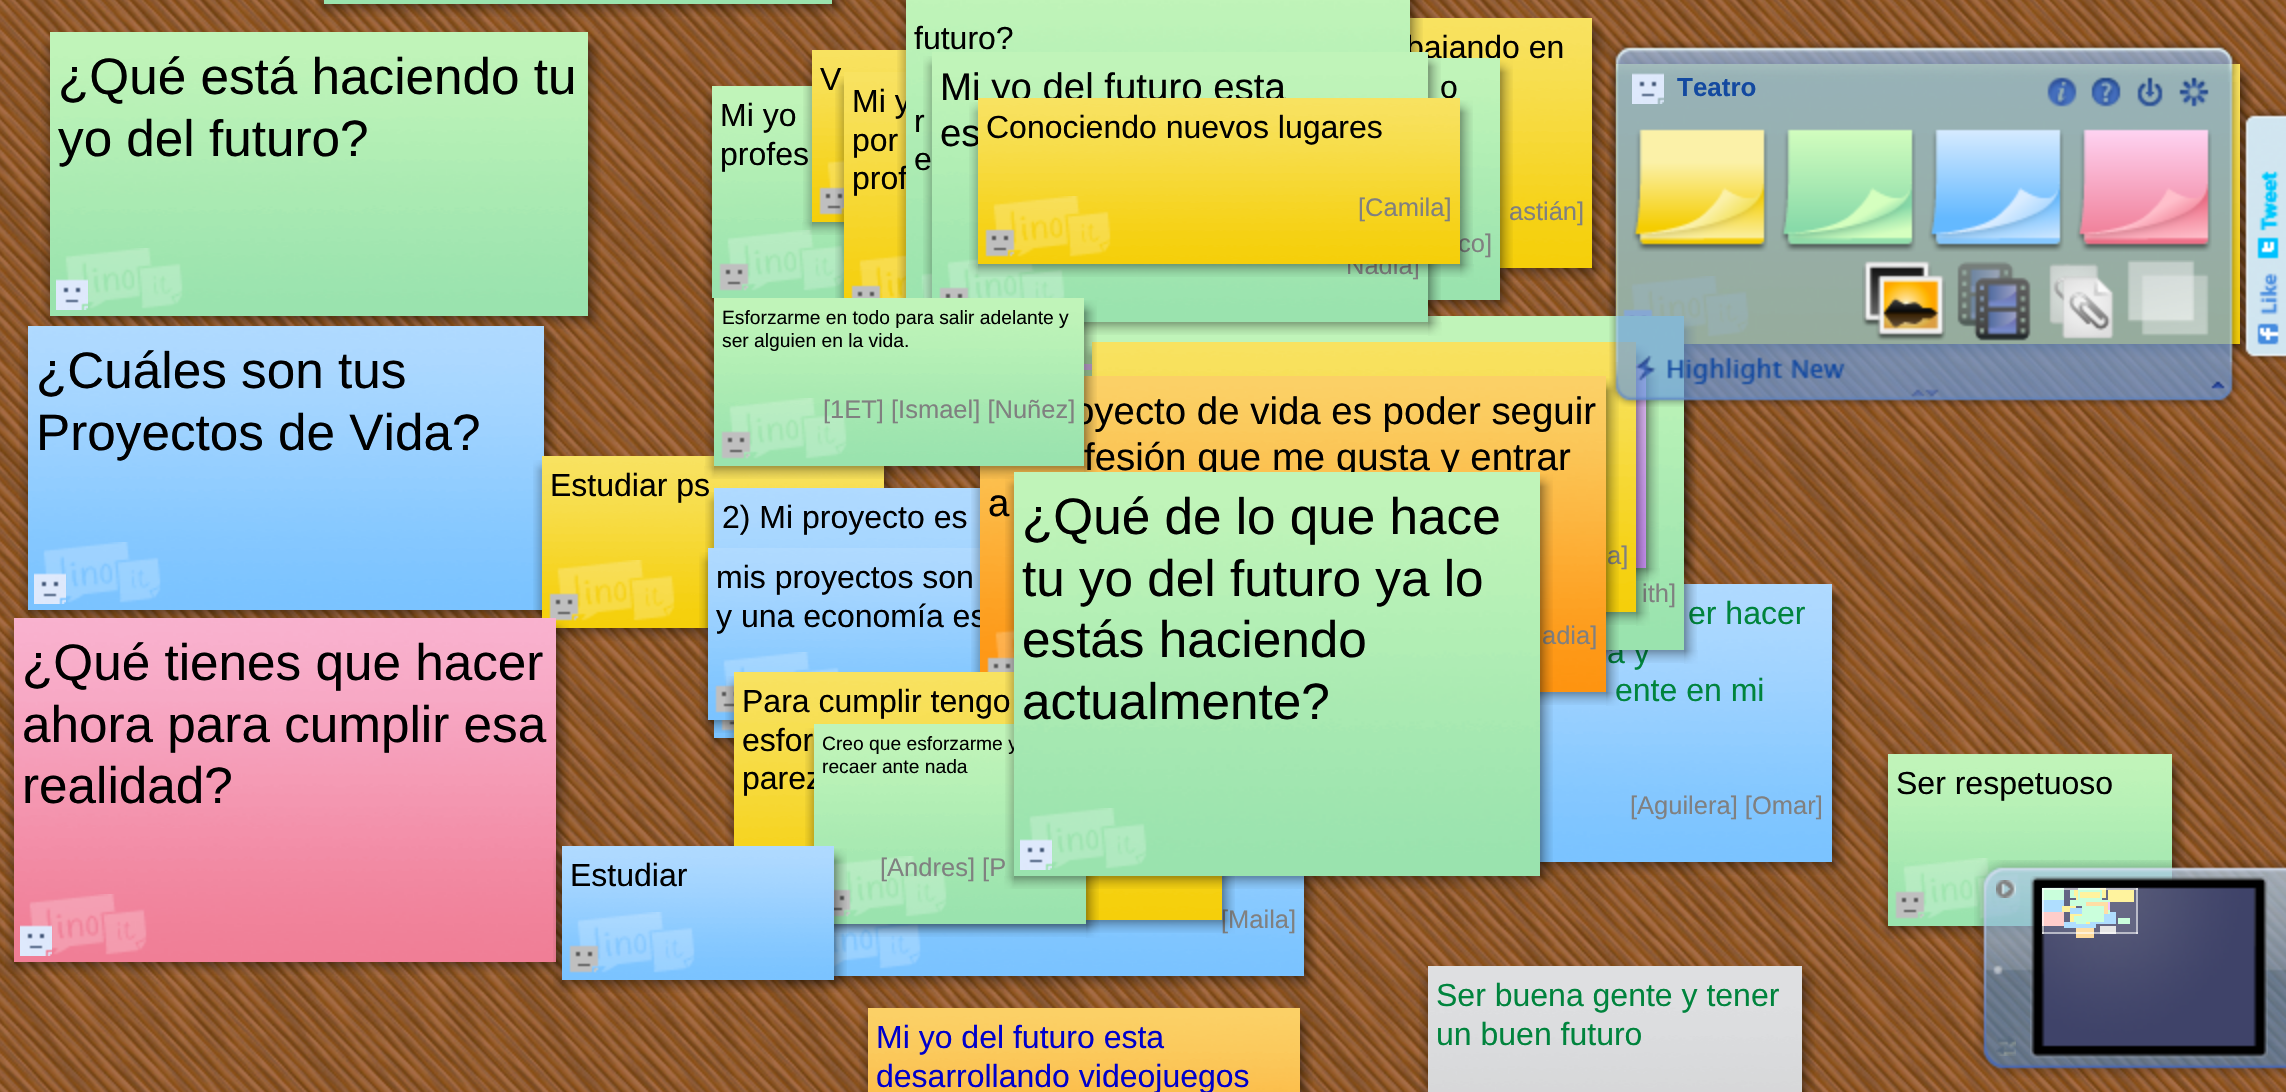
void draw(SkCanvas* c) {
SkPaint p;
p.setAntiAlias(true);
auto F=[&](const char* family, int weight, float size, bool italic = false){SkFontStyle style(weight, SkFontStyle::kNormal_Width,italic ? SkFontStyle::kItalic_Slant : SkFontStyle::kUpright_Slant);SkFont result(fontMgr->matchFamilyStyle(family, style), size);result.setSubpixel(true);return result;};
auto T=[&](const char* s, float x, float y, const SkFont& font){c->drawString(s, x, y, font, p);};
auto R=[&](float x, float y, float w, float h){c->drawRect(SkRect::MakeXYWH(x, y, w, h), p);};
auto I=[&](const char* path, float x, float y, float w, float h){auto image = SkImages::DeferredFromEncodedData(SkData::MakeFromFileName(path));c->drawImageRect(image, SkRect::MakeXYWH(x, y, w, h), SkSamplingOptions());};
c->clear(0xffffffff);
I("1.png",0,0,2286,1092);
I("2.png",315,0,9,4);
p.setColor(0xff9ae3ae);
R(324,0,508,4);
I("3.png",832,0,13,4);
I("4.png",315,4,9,13);
I("5.png",324,4,508,13);
I("6.png",832,4,13,13);
I("7.png",41,36,9,12);
I("8.png",50,32,538,284);
I("9.png",588,35,13,13);
I("10.png",41,48,9,268);
I("11.png",588,48,13,268);
I("12.png",41,316,9,10);
I("13.png",50,316,538,13);
I("14.png",588,316,13,13);
auto f1 = F("Liberation Sans",400,51.25);
p.setColor(0xff000000);
T("¿Qué está haciendo tu",58,94,f1);
T("yo del futuro?",58,156,f1);
I("16.png",65,248,118,61);
I("15.png",56,279,32,31);
I("17.png",803,54,9,12);
I("43.png",712,86,132,212);
I("18.png",812,50,94,172);
auto f2 = F("Liberation Sans",400,32);
T("profes",720,165,f2);
I("19.png",803,66,9,156);
I("48.png",727,230,117,61);
I("20.png",802,222,10,13);
I("21.png",812,222,32,13);
T("V",820,90,f2);
I("23.png",827,160,17,51);
I("22.png",819,187,25,28);
I("50.png",844,72,62,226);
T("Mi y",852,112,f2);
T("por",852,151,f2);
T("prof",852,189,f2);
I("53.png",859,255,47,43);
I("24.png",897,0,9,298);
I("28.png",1410,18,182,250);
T("bajando en",1406,58,f2);
I("25.png",906,0,504,298);
I("26.png",1410,0,13,52);
T("futuro?",914,49,f2);
T("r",914,132,f2);
T("e",914,170,f2);
I("27.png",921,273,11,25);
I("29.png",1592,21,13,13);
I("30.png",1592,34,13,234);
I("31.png",1500,268,92,13);
I("32.png",1592,268,13,13);
auto f3 = F("Liberation Sans",400,25.5);
p.setColor(0xff808080);
T("astián]",1509,220,f3);
I("33.png",1607,68,9,12);
I("34.png",1616,64,624,280);
I("35.png",2240,67,13,13);
I("36.png",1607,80,9,236);
I("37.png",2240,80,13,264);
I("102.png",1684,344,11,218);
I("38.png",1684,344,556,13);
I("39.png",2240,344,11,13);
I("40.png",1631,276,118,61);
I("41.png",1623,309,30,7);
I("42.png",703,90,9,12);
I("44.png",703,102,9,196);
I("45.png",703,298,9,12);
I("46.png",712,298,2,13);
p.setColor(0xff000000);
T("Mi yo",720,126,f2);
I("47.png",719,263,30,28);
I("49.png",835,76,9,12);
I("51.png",835,88,9,210);
I("52.png",851,285,30,13);
I("54.png",923,56,9,12);
I("172.png",1540,584,292,278);
p.setColor(0xff00843d);
T("a y",1607,663,f2);
I("151.png",1084,316,600,334);
I("55.png",932,52,496,270);
I("63.png",1428,58,72,242);
I("56.png",1428,54,13,14);
I("57.png",923,68,9,230);
I("66.png",1428,300,72,13);
I("58.png",1428,68,13,254);
I("59.png",1084,322,344,13);
I("60.png",1428,322,14,14);
auto f4 = F("Liberation Sans",400,38.4);
p.setColor(0xff000000);
T("Mi yo del futuro esta",940,100,f4);
T("es",940,146,f4);
p.setColor(0xff808080);
T("Nadia]",1346,274,f3);
I("62.png",947,258,118,40);
I("61.png",939,287,30,11);
I("64.png",1500,60,13,14);
I("65.png",1500,74,13,226);
I("67.png",1500,300,13,13);
p.setColor(0xff000000);
T("o",1440,98,f2);
p.setColor(0xff808080);
T("co]",1458,252,f3);
I("68.png",969,102,9,12);
I("69.png",978,98,482,166);
I("70.png",1460,100,13,14);
I("71.png",969,114,9,150);
I("72.png",1460,114,13,150);
I("73.png",968,264,10,13);
I("74.png",978,264,482,13);
I("75.png",1460,264,14,14);
p.setColor(0xff000000);
T("Conociendo nuevos lugares",986,138,f2);
p.setColor(0xff808080);
T("[Camila]",1358,216,f3);
I("77.png",993,196,118,61);
I("76.png",985,229,30,28);
I("78.png",19,330,9,12);
I("79.png",28,326,516,284);
I("80.png",544,329,12,13);
I("81.png",19,342,9,268);
I("82.png",544,342,13,114);
I("83.png",19,610,9,8);
I("84.png",28,610,514,8);
p.setColor(0xff000000);
T("¿Cuáles son tus",36,388,f1);
T("Proyectos de Vida?",36,450,f1);
I("86.png",43,542,118,61);
I("85.png",34,573,32,31);
I("87.png",705,302,9,12);
I("106.png",542,456,342,172);
I("97.png",1084,364,562,204);
I("138.png",1092,342,544,270);
I("122.png",714,488,266,250);
I("110.png",556,628,152,13);
I("123.png",705,504,9,234);
I("145.png",708,548,272,172);
T("y una economía es",716,627,f2);
I("113.png",980,376,626,316);
T("oyecto de vida es poder seguir",1073,424,f4);
I("88.png",714,298,370,168);
I("89.png",1084,300,13,14);
I("90.png",705,314,9,152);
I("104.png",1084,370,8,6);
T("fesión que me gusta y entrar",1084,470,f4);
I("137.png",1084,346,8,12);
I("140.png",1084,358,8,18);
I("91.png",1084,314,13,152);
T("Estudiar ps",550,496,f2);
I("92.png",704,466,10,13);
I("107.png",884,466,13,6);
I("109.png",884,472,13,16);
T("mis proyectos son",716,588,f2);
I("115.png",971,466,9,206);
I("93.png",714,466,370,13);
I("94.png",1084,466,14,6);
auto f5 = F("Liberation Sans",400,19.25);
T("Esforzarme en todo para salir adelante y",722,324,f5);
T("ser alguien en la vida.",722,347,f5);
I("96.png",729,398,118,61);
p.setColor(0xff808080);
T("[1ET] [Ismael] [Nuñez]",823,418,f3);
I("95.png",721,431,30,28);
I("98.png",1646,366,13,14);
I("99.png",1646,380,13,188);
I("100.png",1636,568,10,13);
I("101.png",1646,568,14,14);
I("103.png",1684,562,11,13);
I("105.png",533,460,9,12);
I("108.png",533,472,9,146);
I("112.png",557,560,118,61);
I("111.png",549,593,30,28);
I("114.png",1606,378,13,14);
I("142.png",1606,612,30,13);
T("a]",1607,564,f3);
I("154.png",1606,650,78,13);
p.setColor(0xff00843d);
T("ente en mi",1615,701,f2);
I("116.png",1606,392,13,300);
I("117.png",1540,692,66,13);
I("118.png",1606,692,13,14);
p.setColor(0xff000000);
T("a",988,516,f4);
p.setColor(0xff808080);
T("adia]",1542,644,f3);
I("120.png",995,629,19,30);
I("119.png",987,657,27,15);
I("121.png",705,492,9,12);
I("124.png",705,738,9,12);
I("125.png",714,738,20,13);
p.setColor(0xff000000);
T("2) Mi proyecto es",722,528,f2);
I("126.png",721,720,13,11);
I("127.png",1005,476,9,12);
I("150.png",723,652,116,35);
I("204.png",834,876,470,100);
I("167.png",734,672,488,248);
I("209.png",834,924,87,45);
I("170.png",834,920,388,13);
T("parez",742,789,f2);
I("178.png",814,724,272,200);
T("Creo que esforzarme y",822,750,f5);
I("128.png",1014,472,526,404);
I("129.png",1540,474,13,14);
T("Para cumplir tengo",742,712,f2);
I("184.png",834,856,113,61);
p.setColor(0xff808080);
T("[Andres] [P",880,876,f3);
I("130.png",1005,488,9,388);
I("175.png",1540,862,292,13);
I("131.png",1540,488,13,388);
I("132.png",1004,876,10,13);
T("[Maila]",1221,928,f3);
I("169.png",1222,876,13,44);
I("180.png",1086,876,13,48);
I("205.png",1304,876,13,100);
I("133.png",1014,876,526,13);
I("134.png",1540,876,13,13);
p.setColor(0xff000000);
T("¿Qué de lo que hace",1022,534,f1);
T("tu yo del futuro ya lo",1022,596,f1);
T("estás haciendo",1022,657,f1);
T("actualmente?",1022,719,f1);
I("136.png",1029,808,118,61);
I("135.png",1020,839,32,31);
I("139.png",1636,344,13,14);
p.setColor(0xff808080);
T("ith]",1642,602,f3);
I("141.png",1636,358,13,254);
I("143.png",1636,612,14,14);
I("144.png",699,552,9,12);
I("146.png",699,564,9,156);
I("147.png",699,720,9,12);
I("148.png",708,720,26,13);
I("149.png",715,685,19,28);
I("152.png",1684,318,13,14);
p.setColor(0xff00843d);
T("er hacer",1688,624,f2);
I("153.png",1684,332,13,318);
I("155.png",1684,650,14,14);
I("156.png",5,622,9,12);
I("157.png",14,618,542,344);
I("158.png",556,620,13,14);
I("159.png",5,634,9,328);
I("160.png",556,634,13,328);
I("161.png",5,962,9,12);
I("162.png",14,962,542,13);
I("163.png",556,962,6,13);
p.setColor(0xff000000);
T("¿Qué tienes que hacer",22,680,f1);
T("ahora para cumplir esa",22,742,f1);
T("realidad?",22,803,f1);
I("165.png",29,894,118,61);
I("164.png",20,925,32,31);
I("166.png",725,676,9,12);
I("168.png",725,688,9,158);
I("171.png",1222,920,13,14);
T("esfor",742,751,f2);
I("173.png",1832,587,13,13);
I("174.png",1832,600,13,262);
I("176.png",1832,862,13,13);
p.setColor(0xff808080);
T("[Aguilera] [Omar]",1630,814,f3);
I("177.png",805,728,9,12);
I("179.png",805,740,9,106);
I("181.png",834,924,252,13);
I("182.png",1086,924,14,14);
p.setColor(0xff000000);
T("recaer ante nada",822,773,f5);
I("183.png",834,889,17,28);
I("185.png",1879,758,9,12);
I("186.png",1888,754,284,172);
I("187.png",2172,757,13,13);
I("188.png",1879,770,9,156);
I("189.png",2172,770,13,111);
I("190.png",1879,926,9,12);
I("191.png",1888,926,147,13);
T("Ser respetuoso",1896,794,f2);
I("193.png",1903,858,118,61);
I("192.png",1895,891,30,28);
I("194.png",553,851,9,11);
I("207.png",788,976,516,13);
I("195.png",562,846,272,134);
I("196.png",834,848,13,14);
I("197.png",553,862,9,118);
I("198.png",834,862,13,118);
I("199.png",553,980,9,12);
I("206.png",779,980,9,8);
I("200.png",562,980,272,13);
I("201.png",834,980,13,13);
T("Estudiar",570,886,f2);
I("203.png",577,912,118,61);
I("202.png",569,945,30,28);
I("208.png",1304,976,13,13);
I("210.png",1419,970,9,12);
I("211.png",1428,966,374,126);
I("212.png",1802,969,13,13);
I("213.png",1419,982,9,110);
I("214.png",1802,982,13,110);
p.setColor(0xff00843d);
T("Ser buena gente y tener",1436,1006,f2);
T("un buen futuro",1436,1045,f2);
I("215.png",859,1012,9,12);
I("216.png",868,1008,432,84);
I("217.png",1300,1011,13,13);
I("218.png",859,1024,9,68);
I("219.png",1300,1024,13,68);
p.setColor(0xff0000cc);
T("Mi yo del futuro esta",876,1048,f2);
T("desarrollando videojuegos",876,1087,f2);
I("220.png",1609,41,630,41);
I("221.png",1609,82,630,280);
I("222.png",1609,362,630,45);
I("223.png",1632,73,32,31);
auto f6 = F("Liberation Sans",700,26);
p.setColor(0xff1349a0);
T("Teatro",1677,96,f6);
I("224.png",2047,77,30,30);
I("225.png",2091,77,30,30);
I("226.png",2137,77,26,30);
I("227.png",2179,77,30,30);
I("228.png",1632,129,136,123);
I("229.png",1780,129,136,123);
I("230.png",1928,129,136,123);
I("231.png",2076,129,136,123);
I("232.png",1862,261,84,80);
I("233.png",1957,261,74,80);
I("234.png",2049,263,65,76);
I("235.png",2127,260,82,76);
I("236.png",1635,355,210,30);
I("237.png",2211,381,14,8);
I("238.png",1911,389,28,8);
I("239.png",2239,109,47,254);
I("240.png",1974,860,50,218);
I("241.png",1996,880,20,18);
I("242.png",1996,1036,20,20);
I("243.png",2024,860,262,218);
I("244.png",2030,876,238,183);
p.setColor(0xffc4ffd8);
R(2042,888,22,12);
R(2070,890,6,8);
R(2078,888,22,12);
p.setColor(0xfffff293);
R(2100,888,6,10);
R(2074,890,2,6);
R(2076,890,2,10);
R(2080,892,20,6);
p.setColor(0xffc4ffd8);
R(2100,890,2,10);
p.setColor(0xfffff293);
R(2108,890,26,12);
p.setColor(0xffa6dbff);
R(2042,900,22,12);
p.setColor(0xffc4ffd8);
R(2070,900,16,6);
p.setColor(0xffa6dbff);
R(2096,912,20,12);
p.setColor(0xffc4ffd8);
R(2086,900,24,14);
p.setColor(0xfffff293);
R(2062,906,14,6);
p.setColor(0xffffdb9b);
R(2086,902,22,12);
p.setColor(0xffedbbff);
R(2108,902,2,8);
p.setColor(0xffa6dbff);
R(2070,908,12,6);
R(2076,922,20,6);
p.setColor(0xfffff293);
R(2070,914,20,10);
p.setColor(0xffc4ffd8);
R(2074,916,12,8);
R(2082,906,22,16);
p.setColor(0xffffc7c4);
R(2042,912,22,14);
p.setColor(0xffc4ffd8);
R(2118,918,12,6);
p.setColor(0xffa6dbff);
R(2064,922,12,6);
p.setColor(0xffffdb9b);
R(2076,928,18,10);
p.setColor(0xffe4e4e4);
R(2100,926,16,8);
p.setColor(0x1affffff);
R(2042,888,96,46);
p.setColor(0x8cffffff);
R(2042,888,2,46);
R(2042,888,96,2);
R(2136,888,2,46);
R(2042,932,96,2);
}
